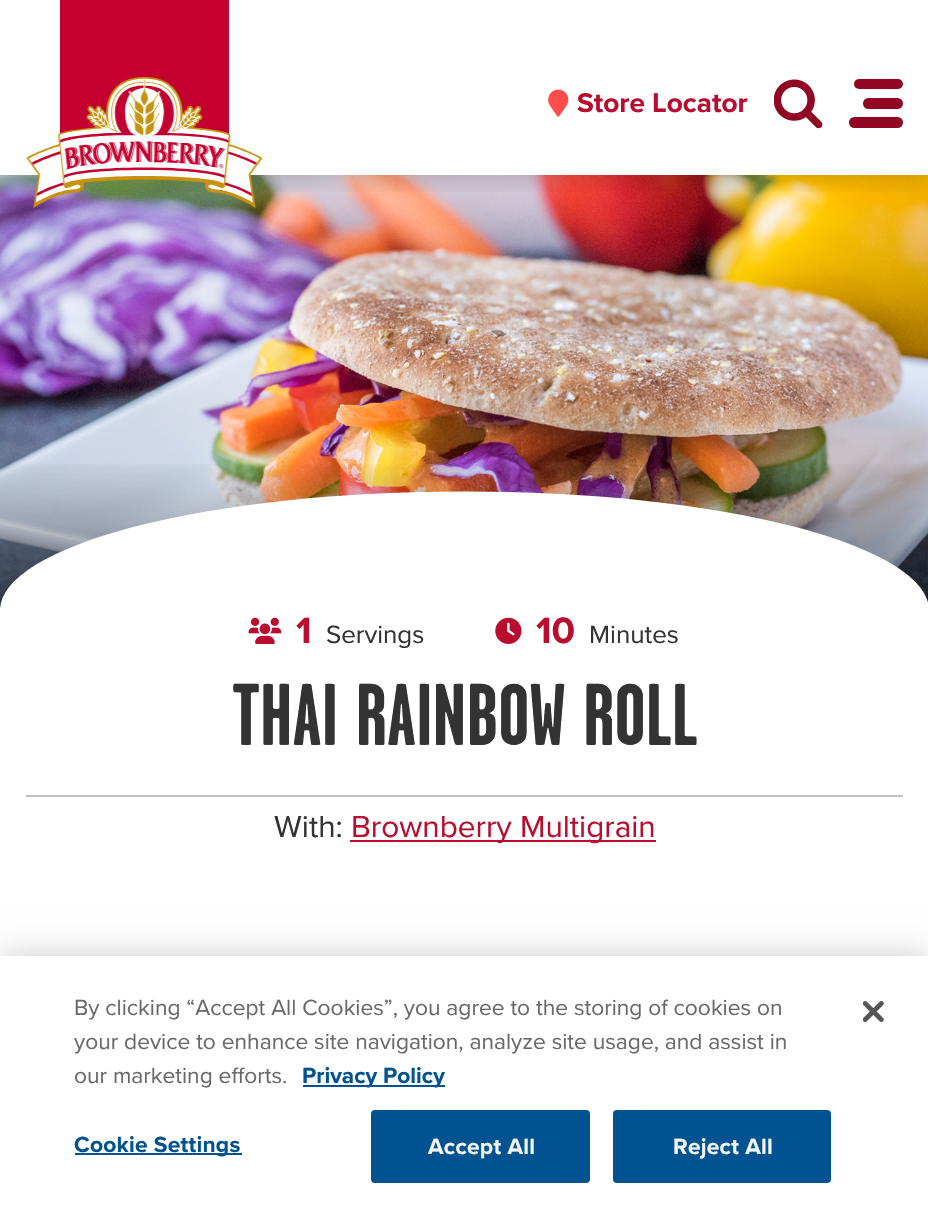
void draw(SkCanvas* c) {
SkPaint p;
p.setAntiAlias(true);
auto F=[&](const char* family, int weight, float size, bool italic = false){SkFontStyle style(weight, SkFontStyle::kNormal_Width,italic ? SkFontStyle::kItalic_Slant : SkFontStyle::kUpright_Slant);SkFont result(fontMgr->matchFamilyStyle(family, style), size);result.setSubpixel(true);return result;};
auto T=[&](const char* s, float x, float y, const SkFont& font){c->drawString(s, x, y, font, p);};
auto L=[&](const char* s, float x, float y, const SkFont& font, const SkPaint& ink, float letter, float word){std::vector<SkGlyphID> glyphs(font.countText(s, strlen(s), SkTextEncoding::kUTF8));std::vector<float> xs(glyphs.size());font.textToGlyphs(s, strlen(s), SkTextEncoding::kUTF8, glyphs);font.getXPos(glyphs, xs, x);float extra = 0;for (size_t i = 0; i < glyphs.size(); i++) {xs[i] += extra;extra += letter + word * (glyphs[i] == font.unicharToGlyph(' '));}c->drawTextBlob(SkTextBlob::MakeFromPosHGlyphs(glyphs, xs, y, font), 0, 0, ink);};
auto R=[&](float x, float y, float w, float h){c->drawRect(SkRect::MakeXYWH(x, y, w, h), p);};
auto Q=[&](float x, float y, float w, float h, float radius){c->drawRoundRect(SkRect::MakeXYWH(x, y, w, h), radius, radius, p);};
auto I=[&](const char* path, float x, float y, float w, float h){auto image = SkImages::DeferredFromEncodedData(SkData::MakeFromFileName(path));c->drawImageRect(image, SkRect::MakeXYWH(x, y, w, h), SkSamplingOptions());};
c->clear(0xffffffff);
I("4.png",0,175,928,433);
c->save();
c->clipRect(SkRect::MakeXYWH(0,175,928,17));
p.setColor(0x26000000);
p.setMaskFilter(SkMaskFilter::MakeBlur(kNormal_SkBlurStyle, 9));
c->drawRect(SkRect::MakeXYWH(0,7,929,175),p);
p.setMaskFilter(nullptr);
c->restore();
p.setColor(0xffc3002f);
R(60,0,169,134);
I("1.png",26,77,237,131);
I("2.png",548,89,21,28);
auto f1 = F("Proxima Nova",700,28);
p.setColor(0xffba0c2f);
T("Store Locator",577,112,f1);
I("3.png",774,79,49,50);
p.setColor(0xff910723);
Q(854,79,49,10,5);
Q(863,98,40,11,5.5);
Q(849,117,54,11,5.5);
{
const SkColor colors[] = {0x00000000,0x80000000};
const float stops[] = {0,1};
const SkPoint ends[] = {{465,457}, {465,608}};
p.setShader(SkGradientShader::MakeLinear(ends, colors, stops, 2, SkTileMode::kClamp));
p.setAlpha(255);
}
R(0,464,928,144);
c->save();
c->clipRect(SkRect::MakeXYWH(0,457,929,151));
p.setShader(nullptr);
p.setColor(0xffffffff);
c->drawOval(SkRect::MakeXYWH(0,491.5,929,238),p);
c->restore();
I("5.png",248,617,34,27);
auto f2 = F("Proxima Nova",700,38);
p.setColor(0xffba0c2f);
T("1",296,643,f2);
auto f3 = F("Proxima Nova",400,26);
p.setColor(0xff333333);
T("Servings",326,643,f3);
I("6.png",495,617,27,27);
p.setColor(0xffba0c2f);
T("10",536,643,f2);
p.setColor(0xff333333);
T("Minutes",589,643,f3);
p.setColor(0xffc1c1c1);
R(26,795,877,2);
auto f4 = F("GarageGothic",700,87.5);
p.setColor(0xff333333);
T("THAI RAINBOW ROLL",232,745,f4);
auto f5 = F("Proxima Nova",400,31.5);
T("With:",274,837,f5);
p.setColor(0xffba0c2f);
R(350,840,306,2);
T("Brownberry Multigrain",351,837,f5);
p.setColor(0x33000000);
p.setMaskFilter(SkMaskFilter::MakeBlur(kNormal_SkBlurStyle, 16));
c->drawRect(SkRect::MakeXYWH(0,956,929,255),p);
p.setMaskFilter(nullptr);
p.setColor(0xffffffff);
R(0,956,928,254);
auto f6 = F("Proxima Nova",400,22.75);
p.setColor(0xff696969);
T("By clicking “Accept All Cookies”, you agree to the storing of cookies on",74,1015,f6);
T("your device to enhance site navigation, analyze site usage, and assist in",74,1049,f6);
T("our marketing efforts.",74,1083,f6);
p.setColor(0xff005290);
R(303,1085,142,2);
auto f7 = F("Proxima Nova",700,22.75);
T("Privacy Policy",302,1083,f7);
R(75,1153,167,2);
L("Cookie Settings",74,1152,f7,p,.25,0);
c->drawRoundRect(SkRect::MakeXYWH(372,1111,217,71),3,3,p);
p.setStroke(true);
p.setStrokeWidth(2);
c->drawRoundRect(SkRect::MakeXYWH(372,1111,217,71),3,3,p);
p.setStroke(false);
p.setColor(0xfff5f5f5);
L("Accept All",428,1154,f7,p,.25,0);
p.setColor(0xff005290);
c->drawRoundRect(SkRect::MakeXYWH(614,1111,216,71),3,3,p);
p.setStroke(true);
c->drawRoundRect(SkRect::MakeXYWH(614,1111,216,71),3,3,p);
p.setStroke(false);
p.setColor(0xfff5f5f5);
L("Reject All",673,1154,f7,p,.25,0);
I("7.png",863,1001,21,21);
}
